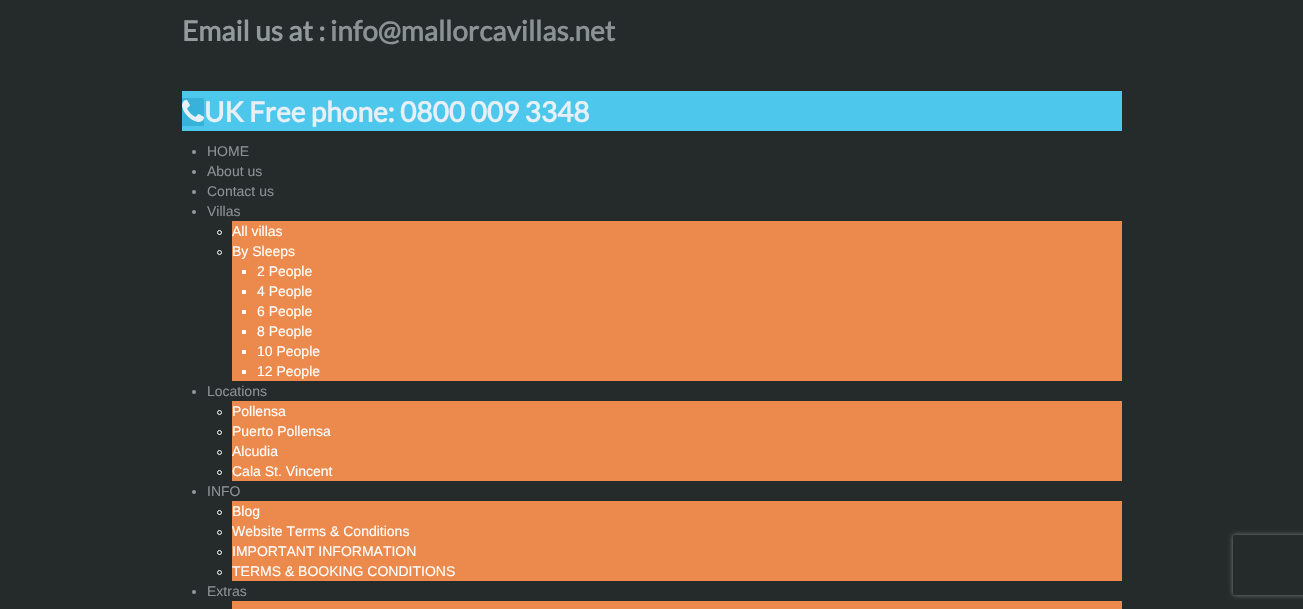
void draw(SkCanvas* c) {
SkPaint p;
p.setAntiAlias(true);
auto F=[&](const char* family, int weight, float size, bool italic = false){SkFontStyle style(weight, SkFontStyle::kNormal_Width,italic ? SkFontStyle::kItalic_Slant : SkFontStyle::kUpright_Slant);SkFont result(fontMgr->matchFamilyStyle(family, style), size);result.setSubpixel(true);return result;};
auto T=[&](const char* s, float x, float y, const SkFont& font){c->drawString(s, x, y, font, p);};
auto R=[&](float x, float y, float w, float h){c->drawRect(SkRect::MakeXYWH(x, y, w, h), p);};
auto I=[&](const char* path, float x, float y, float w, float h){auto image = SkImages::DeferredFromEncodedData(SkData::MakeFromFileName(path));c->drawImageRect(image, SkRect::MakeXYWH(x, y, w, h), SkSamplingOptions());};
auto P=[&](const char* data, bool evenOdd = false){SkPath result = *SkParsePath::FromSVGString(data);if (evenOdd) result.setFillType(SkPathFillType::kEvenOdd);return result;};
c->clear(0xff252a2b);
auto f1 = F("Lato",700,28);
p.setColor(0xff929a9b);
T("Email us at :",182,41,f1);
p.setColor(0xff8b9293);
T("info@mallorcavillas.net",330,41,f1);
p.setColor(0xff4dc7ec);
R(182,91,940,40);
p.setColor(0xff37b3d9);
R(182,98,22,28);
I("1.png",182,100,22,22);
p.setColor(0xffe7eff7);
T("UK Free phone: 0800 009 3348",204,122,f1);
p.setColor(0xff929a9b);
c->drawCircle(194,152,2,p);
auto f2 = F("Liberation Sans",400,14);
p.setColor(0xff8b9293);
T("HOME",207,156,f2);
p.setColor(0xff929a9b);
c->drawCircle(194,172,2,p);
p.setColor(0xff8b9293);
T("About us",207,176,f2);
p.setColor(0xff929a9b);
c->drawCircle(194,192,2,p);
p.setColor(0xff8b9293);
T("Contact us",207,196,f2);
p.setColor(0xff929a9b);
c->drawCircle(194,212,2,p);
p.setColor(0xff8b9293);
T("Villas",207,216,f2);
p.setColor(0xffec894d);
R(232,221,890,160);
p.setStroke(true);
p.setStrokeWidth(1);
p.setColor(0xffffffff);
c->drawCircle(219.5,232.5,2,p);
p.setStroke(false);
T("All villas",232,236,f2);
p.setStroke(true);
c->drawCircle(219.5,252.5,2,p);
p.setStroke(false);
T("By Sleeps",232,256,f2);
R(242,270,4,4);
T("2 People",257,276,f2);
R(242,290,4,4);
T("4 People",257,296,f2);
R(242,310,4,4);
T("6 People",257,316,f2);
R(242,330,4,4);
T("8 People",257,336,f2);
R(242,350,4,4);
T("10 People",257,356,f2);
R(242,370,4,4);
T("12 People",257,376,f2);
p.setColor(0xff929a9b);
c->drawCircle(194,392,2,p);
p.setColor(0xff8b9293);
T("Locations",207,396,f2);
p.setColor(0xffec894d);
R(232,401,890,80);
p.setStroke(true);
p.setColor(0xffffffff);
c->drawCircle(219.5,412.5,2,p);
p.setStroke(false);
T("Pollensa",232,416,f2);
p.setStroke(true);
c->drawCircle(219.5,432.5,2,p);
p.setStroke(false);
T("Puerto Pollensa",232,436,f2);
p.setStroke(true);
c->drawCircle(219.5,452.5,2,p);
p.setStroke(false);
T("Alcudia",232,456,f2);
p.setStroke(true);
c->drawCircle(219.5,472.5,2,p);
p.setStroke(false);
T("Cala St. Vincent",232,476,f2);
p.setColor(0xff929a9b);
c->drawCircle(194,492,2,p);
p.setColor(0xff8b9293);
T("INFO",207,496,f2);
p.setColor(0xffec894d);
R(232,501,890,80);
p.setStroke(true);
p.setColor(0xffffffff);
c->drawCircle(219.5,512.5,2,p);
p.setStroke(false);
T("Blog",232,516,f2);
p.setStroke(true);
c->drawCircle(219.5,532.5,2,p);
p.setStroke(false);
T("Website Terms & Conditions",232,536,f2);
p.setStroke(true);
c->drawCircle(219.5,552.5,2,p);
p.setStroke(false);
T("IMPORTANT INFORMATION",232,556,f2);
p.setStroke(true);
c->drawCircle(219.5,572.5,2,p);
p.setStroke(false);
T("TERMS & BOOKING CONDITIONS",232,576,f2);
p.setColor(0xff929a9b);
c->drawCircle(194,592,2,p);
p.setColor(0xff8b9293);
T("Extras",207,596,f2);
p.setColor(0xffec894d);
R(232,601,890,8);
c->save();
c->clipPath(P("M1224 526h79v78h-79zm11 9h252c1 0 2 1 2 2v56c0 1-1 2-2 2h-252c-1 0-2-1-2-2v-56c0-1 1-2 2-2z",true),true);
p.setColor(0xff808080);
p.setMaskFilter(SkMaskFilter::MakeBlur(kNormal_SkBlurStyle, 2.5));
c->drawRoundRect(SkRect::MakeXYWH(1233,535,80,60),2,2,p);
p.setMaskFilter(nullptr);
c->restore();
}
